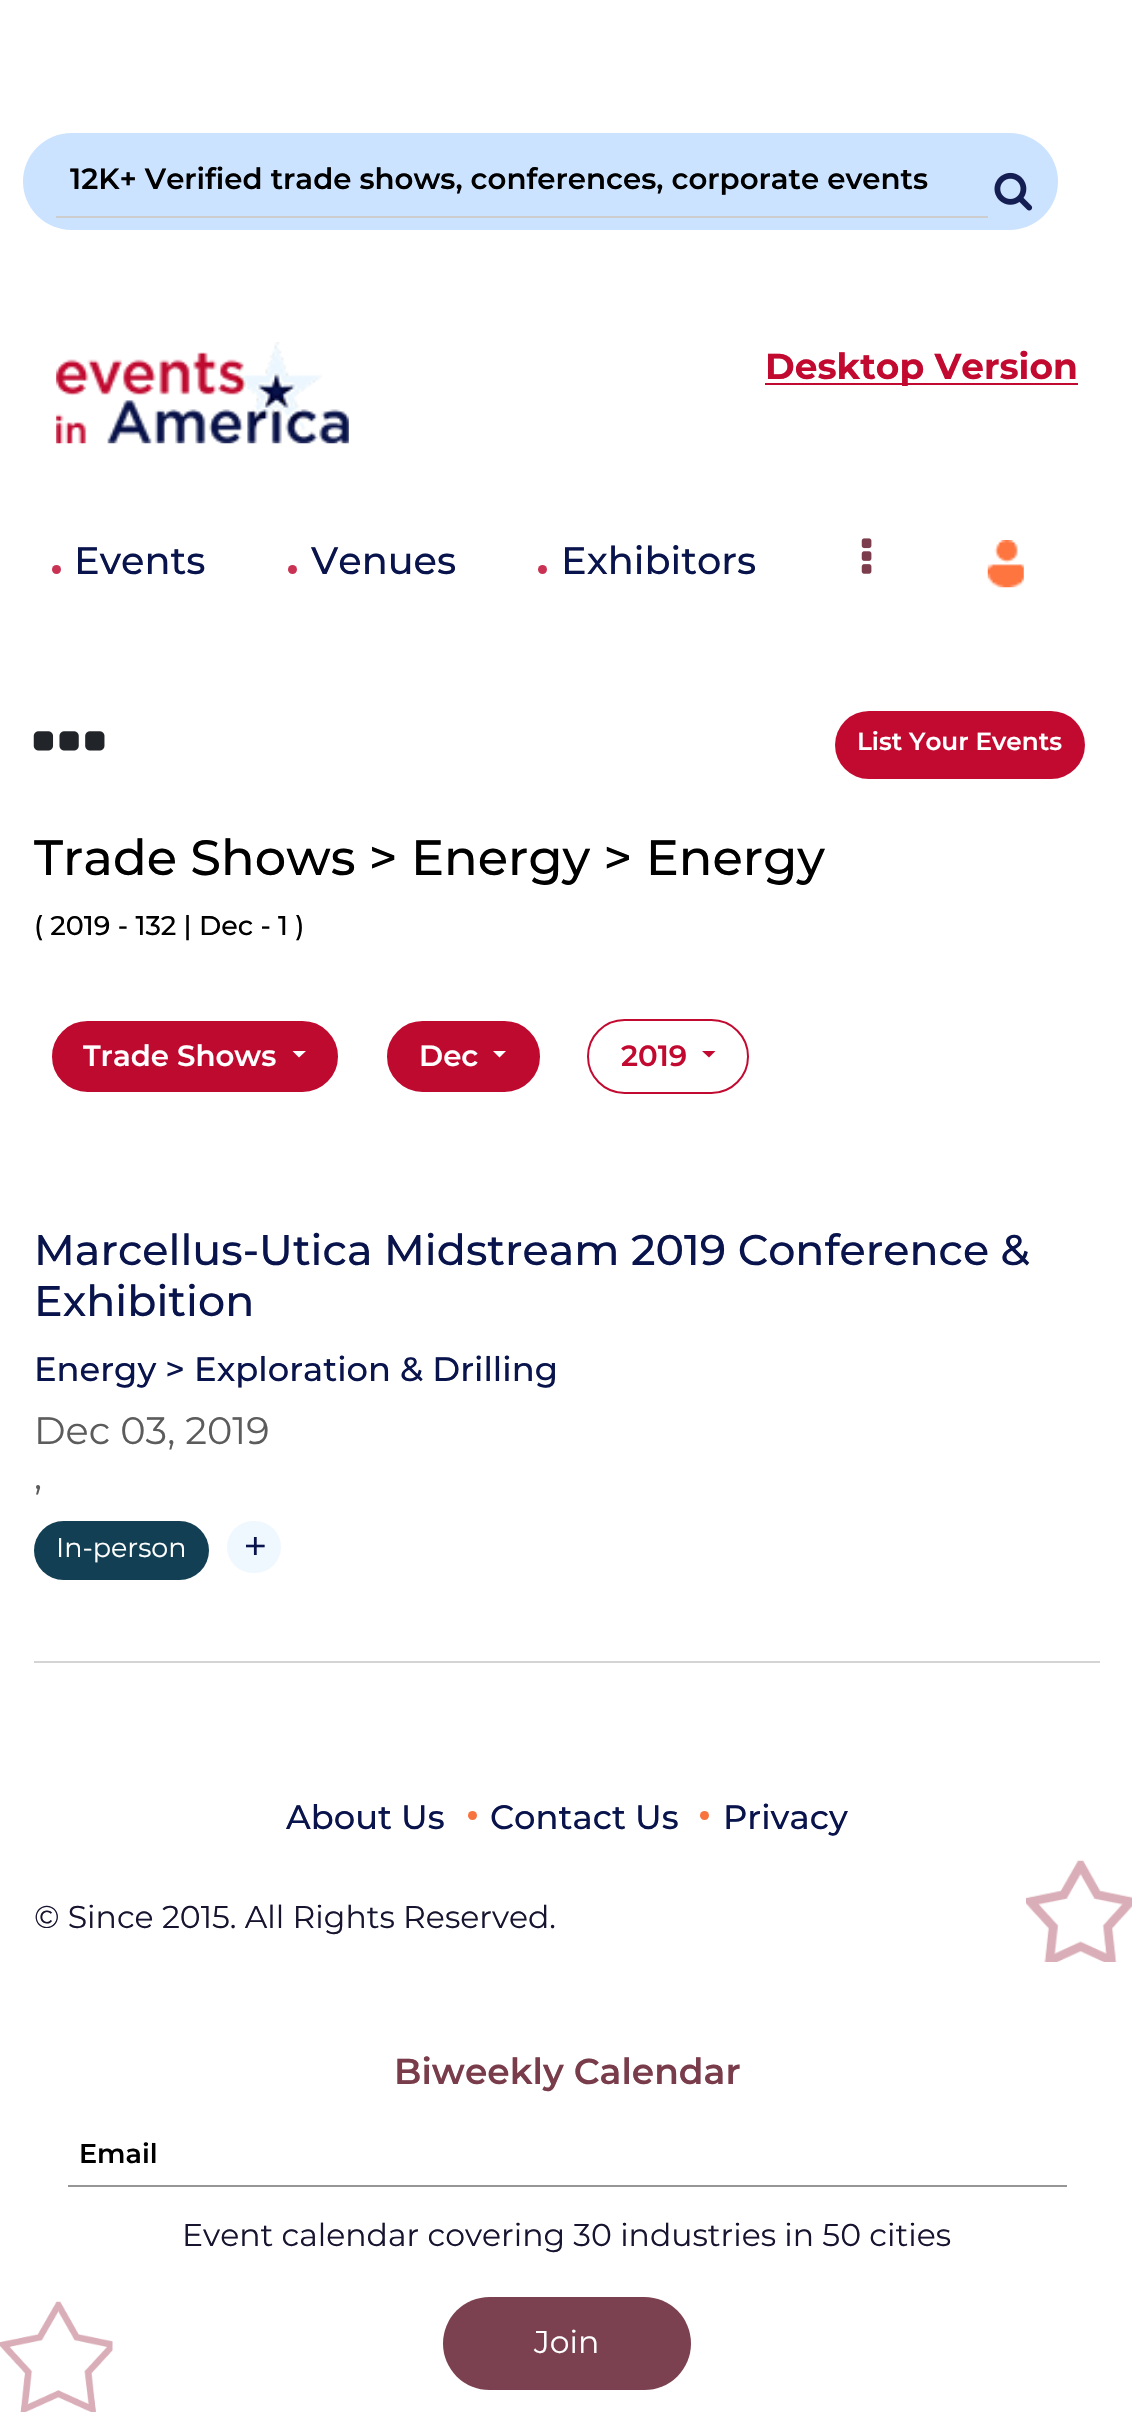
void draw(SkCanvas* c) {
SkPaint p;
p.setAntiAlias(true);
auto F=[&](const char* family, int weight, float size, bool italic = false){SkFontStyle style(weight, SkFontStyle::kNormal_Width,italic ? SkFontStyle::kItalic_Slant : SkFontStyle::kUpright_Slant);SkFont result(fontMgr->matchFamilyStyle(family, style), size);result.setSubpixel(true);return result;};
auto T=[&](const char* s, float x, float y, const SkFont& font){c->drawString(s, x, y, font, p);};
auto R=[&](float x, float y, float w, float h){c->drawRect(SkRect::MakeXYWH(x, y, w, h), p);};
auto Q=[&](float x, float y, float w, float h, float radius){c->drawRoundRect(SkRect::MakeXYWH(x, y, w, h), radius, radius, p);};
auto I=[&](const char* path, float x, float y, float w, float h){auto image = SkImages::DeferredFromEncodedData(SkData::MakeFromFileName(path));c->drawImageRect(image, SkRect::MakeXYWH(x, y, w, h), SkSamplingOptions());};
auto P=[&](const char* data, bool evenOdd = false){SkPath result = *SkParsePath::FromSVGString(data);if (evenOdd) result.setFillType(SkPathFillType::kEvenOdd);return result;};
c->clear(0xffffffff);
p.setColor(0xffcbe3ff);
Q(23,133,1035,97,48.5);
p.setColor(0xffcdcdcd);
R(56,216,932,2);
auto f1 = F("Montserrat",600,29.25);
p.setColor(0xff000000);
T("12K+ Verified trade shows, conferences, corporate events",70,189,f1);
I("1.png",994,172,39,39);
I("2.png",56,342,293,102);
p.setColor(0xffc20a31);
R(765,383,313,2);
auto f2 = F("Montserrat",700,36);
T("Desktop Version",765,379,f2);
p.setColor(0xffc93252);
c->drawCircle(56.5,569.5,4.5,p);
auto f3 = F("Montserrat",500,38.25);
p.setColor(0xff09144c);
T("Events",74,574,f3);
p.setColor(0xffc93252);
c->drawCircle(292.5,569.5,4.5,p);
p.setColor(0xff09144c);
T("Venues",311,574,f3);
p.setColor(0xffc93252);
c->drawCircle(542.5,569.5,4.5,p);
p.setColor(0xff09144c);
T("Exhibitors",561,574,f3);
I("3.png",861,538,11,36);
I("4.png",987,540,37,48);
I("5.png",33,731,72,20);
p.setColor(0xffc20a31);
Q(835,711,250,68,34);
auto f4 = F("Montserrat",600,24.75);
p.setColor(0xffffffff);
T("List Your Events",857,750,f4);
auto f5 = F("Montserrat",500,49.5);
p.setColor(0xff000000);
T("Trade Shows > Energy > Energy",34,875,f5);
auto f6 = F("Montserrat",500,27);
T("( 2019 - 132 | Dec - 1 )",34,935,f6);
p.setColor(0xffbf0a30);
c->drawRoundRect(SkRect::MakeXYWH(51,1020,288,73),36.5,36.5,p);
p.setStroke(true);
p.setStrokeWidth(2);
p.setColor(0xffffffff);
c->drawRoundRect(SkRect::MakeXYWH(51,1020,288,73),36.5,36.5,p);
p.setStroke(false);
T("Trade Shows",83,1066,f1);
c->drawPath(P("M292.5 1051h13.5l-7 6.5z"),p);
p.setColor(0xffbf0a30);
c->drawRoundRect(SkRect::MakeXYWH(386,1020,155,73),36.5,36.5,p);
p.setStroke(true);
p.setColor(0xffffffff);
c->drawRoundRect(SkRect::MakeXYWH(386,1020,155,73),36.5,36.5,p);
p.setStroke(false);
T("Dec",419,1066,f1);
c->drawPath(P("M493 1051h13l-6.5 6.5z"),p);
p.setStroke(true);
p.setColor(0xffc20a31);
c->drawRoundRect(SkRect::MakeXYWH(588,1020,160,73),36.5,36.5,p);
p.setStroke(false);
T("2019",621,1066,f1);
c->drawPath(P("M702 1051h13.5l-6.5 6.5z"),p);
p.setColor(0xffd4d4d4);
R(34,1661,1066,2);
auto f7 = F("Montserrat",500,42.75);
p.setColor(0xff09144c);
T("Marcellus-Utica Midstream 2019 Conference &",34,1265,f7);
T("Exhibition",34,1316,f7);
auto f8 = F("Montserrat",500,33.75);
T("Energy > Exploration & Drilling",34,1381,f8);
auto f9 = F("Montserrat",400,38.25);
p.setColor(0xff5d5c5c);
T("Dec 03, 2019",34,1444,f9);
T(",",34,1489,f9);
p.setColor(0xff123f54);
Q(34,1521,175,59,29.5);
auto f10 = F("Montserrat",400,27);
p.setColor(0xffffffff);
T("In-person",56,1557,f10);
p.setColor(0xfff0f8ff);
Q(227,1521,54,52,26);
auto f11 = F("Montserrat",400,42.75);
p.setColor(0xff09144c);
T("+",243,1561,f11);
T("About Us",286,1829,f8);
p.setColor(0xfff8743f);
c->drawCircle(472.5,1815.5,4.5,p);
p.setColor(0xff09144c);
T("Contact Us",490,1829,f8);
p.setColor(0xfff8743f);
c->drawCircle(704.5,1815.5,4.5,p);
p.setColor(0xff09144c);
T("Privacy",723,1829,f8);
auto f12 = F("Montserrat",400,31.5);
p.setColor(0xff171430);
T("© Since 2015. All Rights Reserved.",34,1928,f12);
I("6.png",1026,1860,106,102);
auto f13 = F("Montserrat",600,36);
p.setColor(0xff793c4b);
T("Biweekly Calendar",394,2084,f13);
p.setColor(0xff969696);
R(68,2185,999,2);
auto f14 = F("Montserrat",600,27);
p.setColor(0xff000000);
T("Email",79,2163,f14);
p.setColor(0xff171430);
T("Event calendar covering 30 industries in 50 cities",182,2246,f12);
I("7.png",0,2301,113,111);
p.setColor(0xff7c4150);
Q(443,2297,248,93,46.5);
p.setColor(0xffffffff);
T("Join",534,2353,f12);
}
